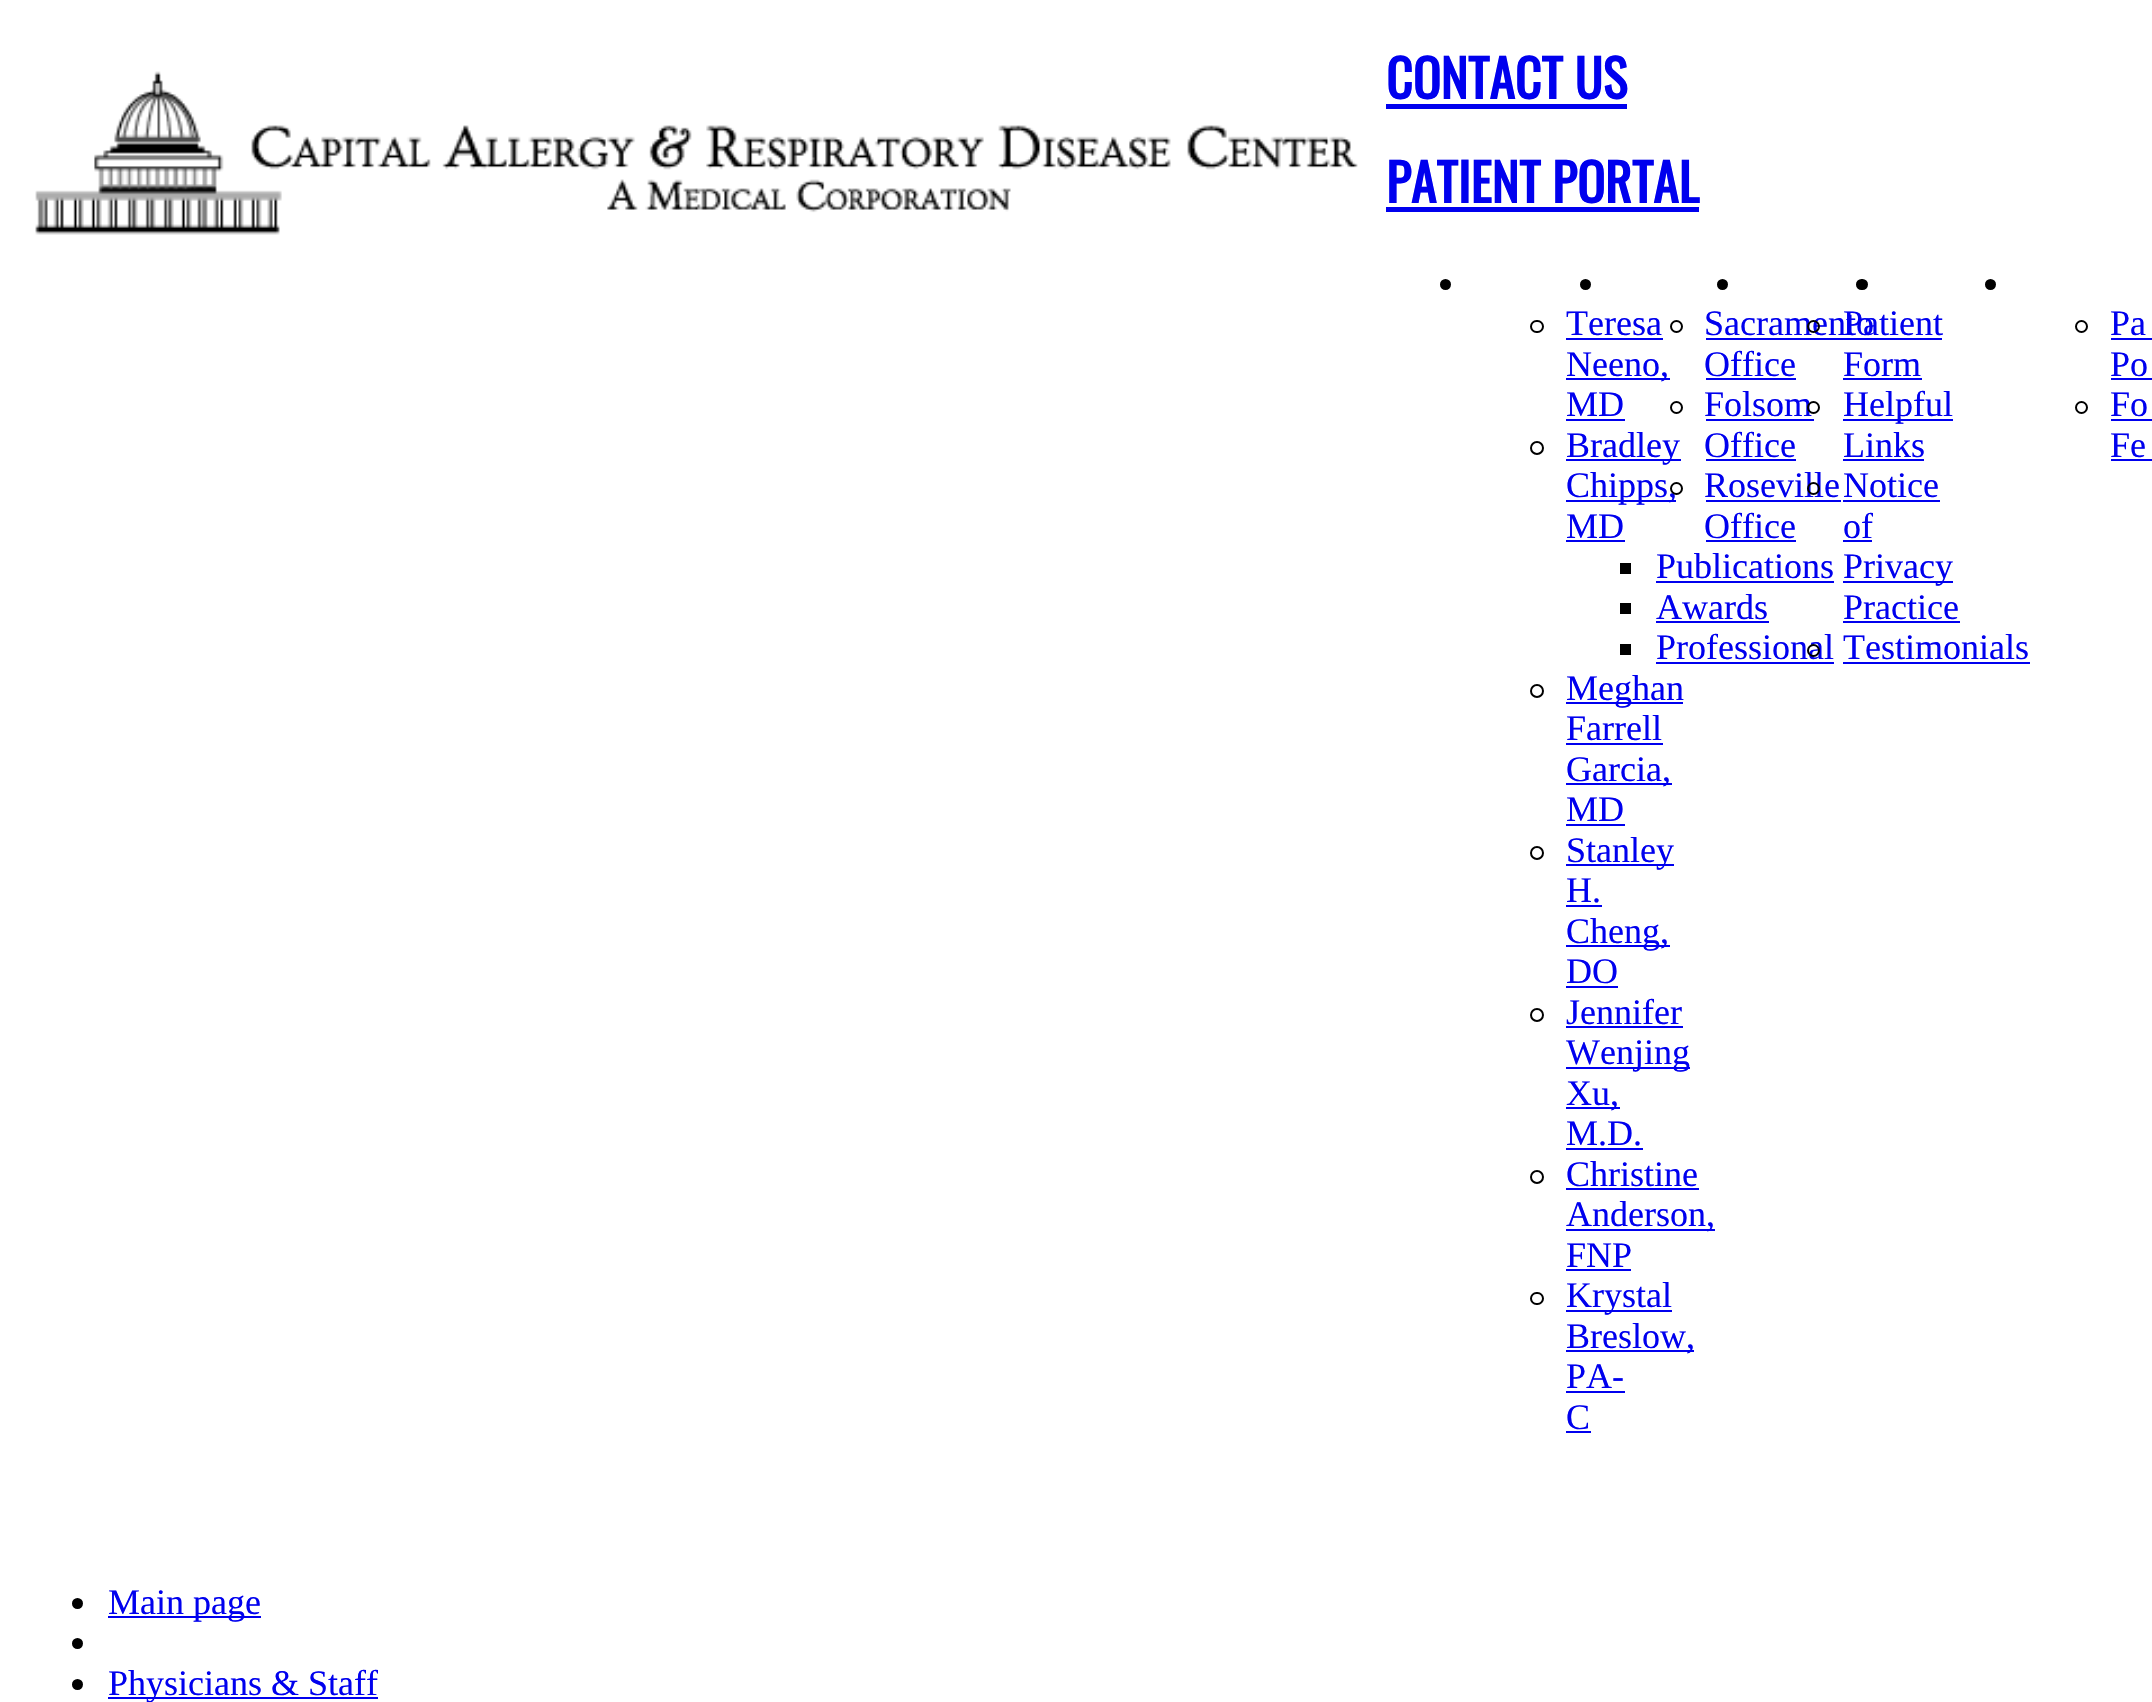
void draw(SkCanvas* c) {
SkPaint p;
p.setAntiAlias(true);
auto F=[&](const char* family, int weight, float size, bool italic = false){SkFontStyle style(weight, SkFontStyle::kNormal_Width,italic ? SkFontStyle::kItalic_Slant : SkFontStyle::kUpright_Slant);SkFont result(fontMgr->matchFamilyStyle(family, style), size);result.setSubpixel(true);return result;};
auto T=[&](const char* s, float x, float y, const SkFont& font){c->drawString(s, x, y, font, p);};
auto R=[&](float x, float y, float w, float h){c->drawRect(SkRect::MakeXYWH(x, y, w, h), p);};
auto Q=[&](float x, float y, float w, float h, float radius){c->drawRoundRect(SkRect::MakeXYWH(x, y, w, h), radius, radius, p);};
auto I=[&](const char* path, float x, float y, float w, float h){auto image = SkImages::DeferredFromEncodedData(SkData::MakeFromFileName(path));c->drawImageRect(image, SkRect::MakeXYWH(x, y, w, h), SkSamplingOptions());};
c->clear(0xffffffff);
I("1.png",35,71,1323,164);
auto f1 = F("Oswald",700,51.75);
p.setColor(0xff0000ee);
T("CONTACT US",1386,99,f1);
R(1386,104,241,5);
T("PATIENT PORTAL",1386,203,f1);
R(1386,207,313,5);
p.setColor(0xff000000);
Q(1856,279,12,11,5.5);
c->drawCircle(1445.5,284.5,5.5,p);
p.setStroke(true);
p.setStrokeWidth(2);
c->drawRoundRect(SkRect::MakeXYWH(1531,321,12,11),5.5,5.5,p);
auto f2 = F("Liberation Serif",400,36);
p.setStroke(false);
p.setColor(0xff0000ee);
T("Teresa",1566,335,f2);
R(1566,338,97,2);
R(1566,378,104,2);
T("Neeno,",1566,376,f2);
T("MD",1566,416,f2);
R(1566,419,59,2);
p.setStroke(true);
p.setColor(0xff000000);
c->drawCircle(1537,448,6,p);
p.setStroke(false);
p.setColor(0xff0000ee);
R(1566,459,115,2);
T("Bradley",1566,457,f2);
R(1566,500,110,2);
T("Chipps,",1566,497,f2);
T("MD",1566,538,f2);
R(1566,540,59,2);
p.setColor(0xff000000);
R(1620,563,11,11);
p.setColor(0xff0000ee);
T("Publications",1656,578,f2);
R(1656,581,178,2);
p.setColor(0xff000000);
R(1620,603,11,11);
p.setColor(0xff0000ee);
T("Awards",1656,619,f2);
R(1656,621,113,2);
p.setColor(0xff000000);
R(1620,644,11,11);
p.setColor(0xff0000ee);
T("Professional Testimonials",1656,659,f2);
R(1656,662,178,2);
p.setStroke(true);
p.setColor(0xff000000);
c->drawCircle(1537,691,6,p);
p.setStroke(false);
p.setColor(0xff0000ee);
R(1566,702,117,2);
T("Meghan",1566,700,f2);
T("Farrell",1566,740,f2);
R(1566,743,97,2);
R(1566,783,106,2);
T("Garcia,",1566,781,f2);
T("MD",1566,821,f2);
R(1566,824,59,2);
p.setStroke(true);
p.setColor(0xff000000);
c->drawCircle(1537,853,6,p);
p.setStroke(false);
p.setColor(0xff0000ee);
R(1566,864,108,2);
T("Stanley",1566,862,f2);
T("H.",1566,902,f2);
R(1566,905,36,2);
R(1566,945,104,2);
T("Cheng,",1566,943,f2);
T("DO",1566,983,f2);
R(1566,986,52,2);
p.setStroke(true);
p.setColor(0xff000000);
c->drawCircle(1537,1015,6,p);
p.setStroke(false);
p.setColor(0xff0000ee);
T("Jennifer",1566,1024,f2);
R(1566,1026,117,2);
R(1566,1067,124,2);
T("Wenjing",1566,1064,f2);
R(1566,1107,54,2);
T("Xu,",1566,1105,f2);
T("M.D.",1566,1145,f2);
R(1566,1148,77,2);
p.setStroke(true);
p.setColor(0xff000000);
c->drawCircle(1537,1177,6,p);
p.setStroke(false);
p.setColor(0xff0000ee);
T("Christine",1566,1186,f2);
R(1566,1188,133,2);
R(1566,1229,149,2);
T("Anderson,",1566,1226,f2);
T("FNP",1566,1267,f2);
R(1566,1269,65,2);
p.setStroke(true);
p.setColor(0xff000000);
c->drawRoundRect(SkRect::MakeXYWH(1531,1293,12,11),5.5,5.5,p);
p.setStroke(false);
p.setColor(0xff0000ee);
R(1566,1310,106,2);
T("Krystal",1566,1307,f2);
R(1566,1350,128,2);
T("Breslow,",1566,1348,f2);
T("PA-",1566,1388,f2);
R(1566,1391,59,2);
T("C",1566,1429,f2);
R(1566,1431,25,2);
p.setColor(0xff000000);
c->drawCircle(1585.5,284.5,5.5,p);
p.setStroke(true);
c->drawCircle(1676.5,326.5,5.5,p);
p.setStroke(false);
p.setColor(0xff0000ee);
T("Sacramento",1704,335,f2);
R(1706,338,236,2);
T("Office",1704,376,f2);
R(1706,378,90,2);
p.setStroke(true);
p.setColor(0xff000000);
c->drawCircle(1676.5,407.5,5.5,p);
p.setStroke(false);
p.setColor(0xff0000ee);
T("Folsom",1704,416,f2);
R(1706,419,108,2);
T("Office",1704,457,f2);
R(1706,459,90,2);
p.setStroke(true);
p.setColor(0xff000000);
c->drawCircle(1676.5,488.5,5.5,p);
p.setStroke(false);
p.setColor(0xff0000ee);
T("Roseville",1704,497,f2);
R(1706,500,135,2);
T("Office",1704,538,f2);
R(1706,540,90,2);
p.setColor(0xff000000);
c->drawCircle(1722.5,284.5,5.5,p);
p.setStroke(true);
c->drawCircle(1813.5,326.5,5.5,p);
p.setStroke(false);
p.setColor(0xff0000ee);
T("Patient",1843,335,f2);
T("Form",1843,376,f2);
R(1843,378,79,2);
p.setStroke(true);
p.setColor(0xff000000);
c->drawCircle(1813.5,407.5,5.5,p);
p.setStroke(false);
p.setColor(0xff0000ee);
R(1843,419,110,2);
T("Helpful",1843,416,f2);
T("Links",1843,457,f2);
R(1843,459,81,2);
p.setStroke(true);
p.setColor(0xff000000);
c->drawCircle(1813.5,488.5,5.5,p);
p.setStroke(false);
p.setColor(0xff0000ee);
T("Notice",1843,497,f2);
R(1843,500,97,2);
T("of",1843,538,f2);
R(1843,540,29,2);
R(1843,581,110,2);
T("Privacy",1843,578,f2);
T("Practice",1843,619,f2);
R(1843,621,117,2);
p.setStroke(true);
p.setColor(0xff000000);
c->drawCircle(1813.5,650.5,5.5,p);
p.setStroke(false);
p.setColor(0xff0000ee);
R(1843,662,187,2);
p.setColor(0xff000000);
c->drawCircle(1990.5,284.5,5.5,p);
p.setStroke(true);
c->drawCircle(2081.5,326.5,5.5,p);
p.setStroke(false);
p.setColor(0xff0000ee);
T("Pa",2110,335,f2);
R(2111,338,41,2);
T("Po",2110,376,f2);
R(2111,378,41,2);
p.setStroke(true);
p.setColor(0xff000000);
c->drawCircle(2081.5,407.5,5.5,p);
p.setStroke(false);
p.setColor(0xff0000ee);
T("Fo",2110,416,f2);
R(2111,419,41,2);
T("Fe",2110,457,f2);
R(2111,459,41,2);
p.setColor(0xff000000);
c->drawCircle(77.5,1603.5,5.5,p);
p.setColor(0xff0000ee);
R(108,1616,153,2);
T("Main page",108,1614,f2);
p.setColor(0xff000000);
c->drawCircle(77.5,1643.5,5.5,p);
c->drawCircle(77.5,1684.5,5.5,p);
p.setColor(0xff0000ee);
R(108,1697,270,2);
T("Physicians & Staff",108,1695,f2);
}
